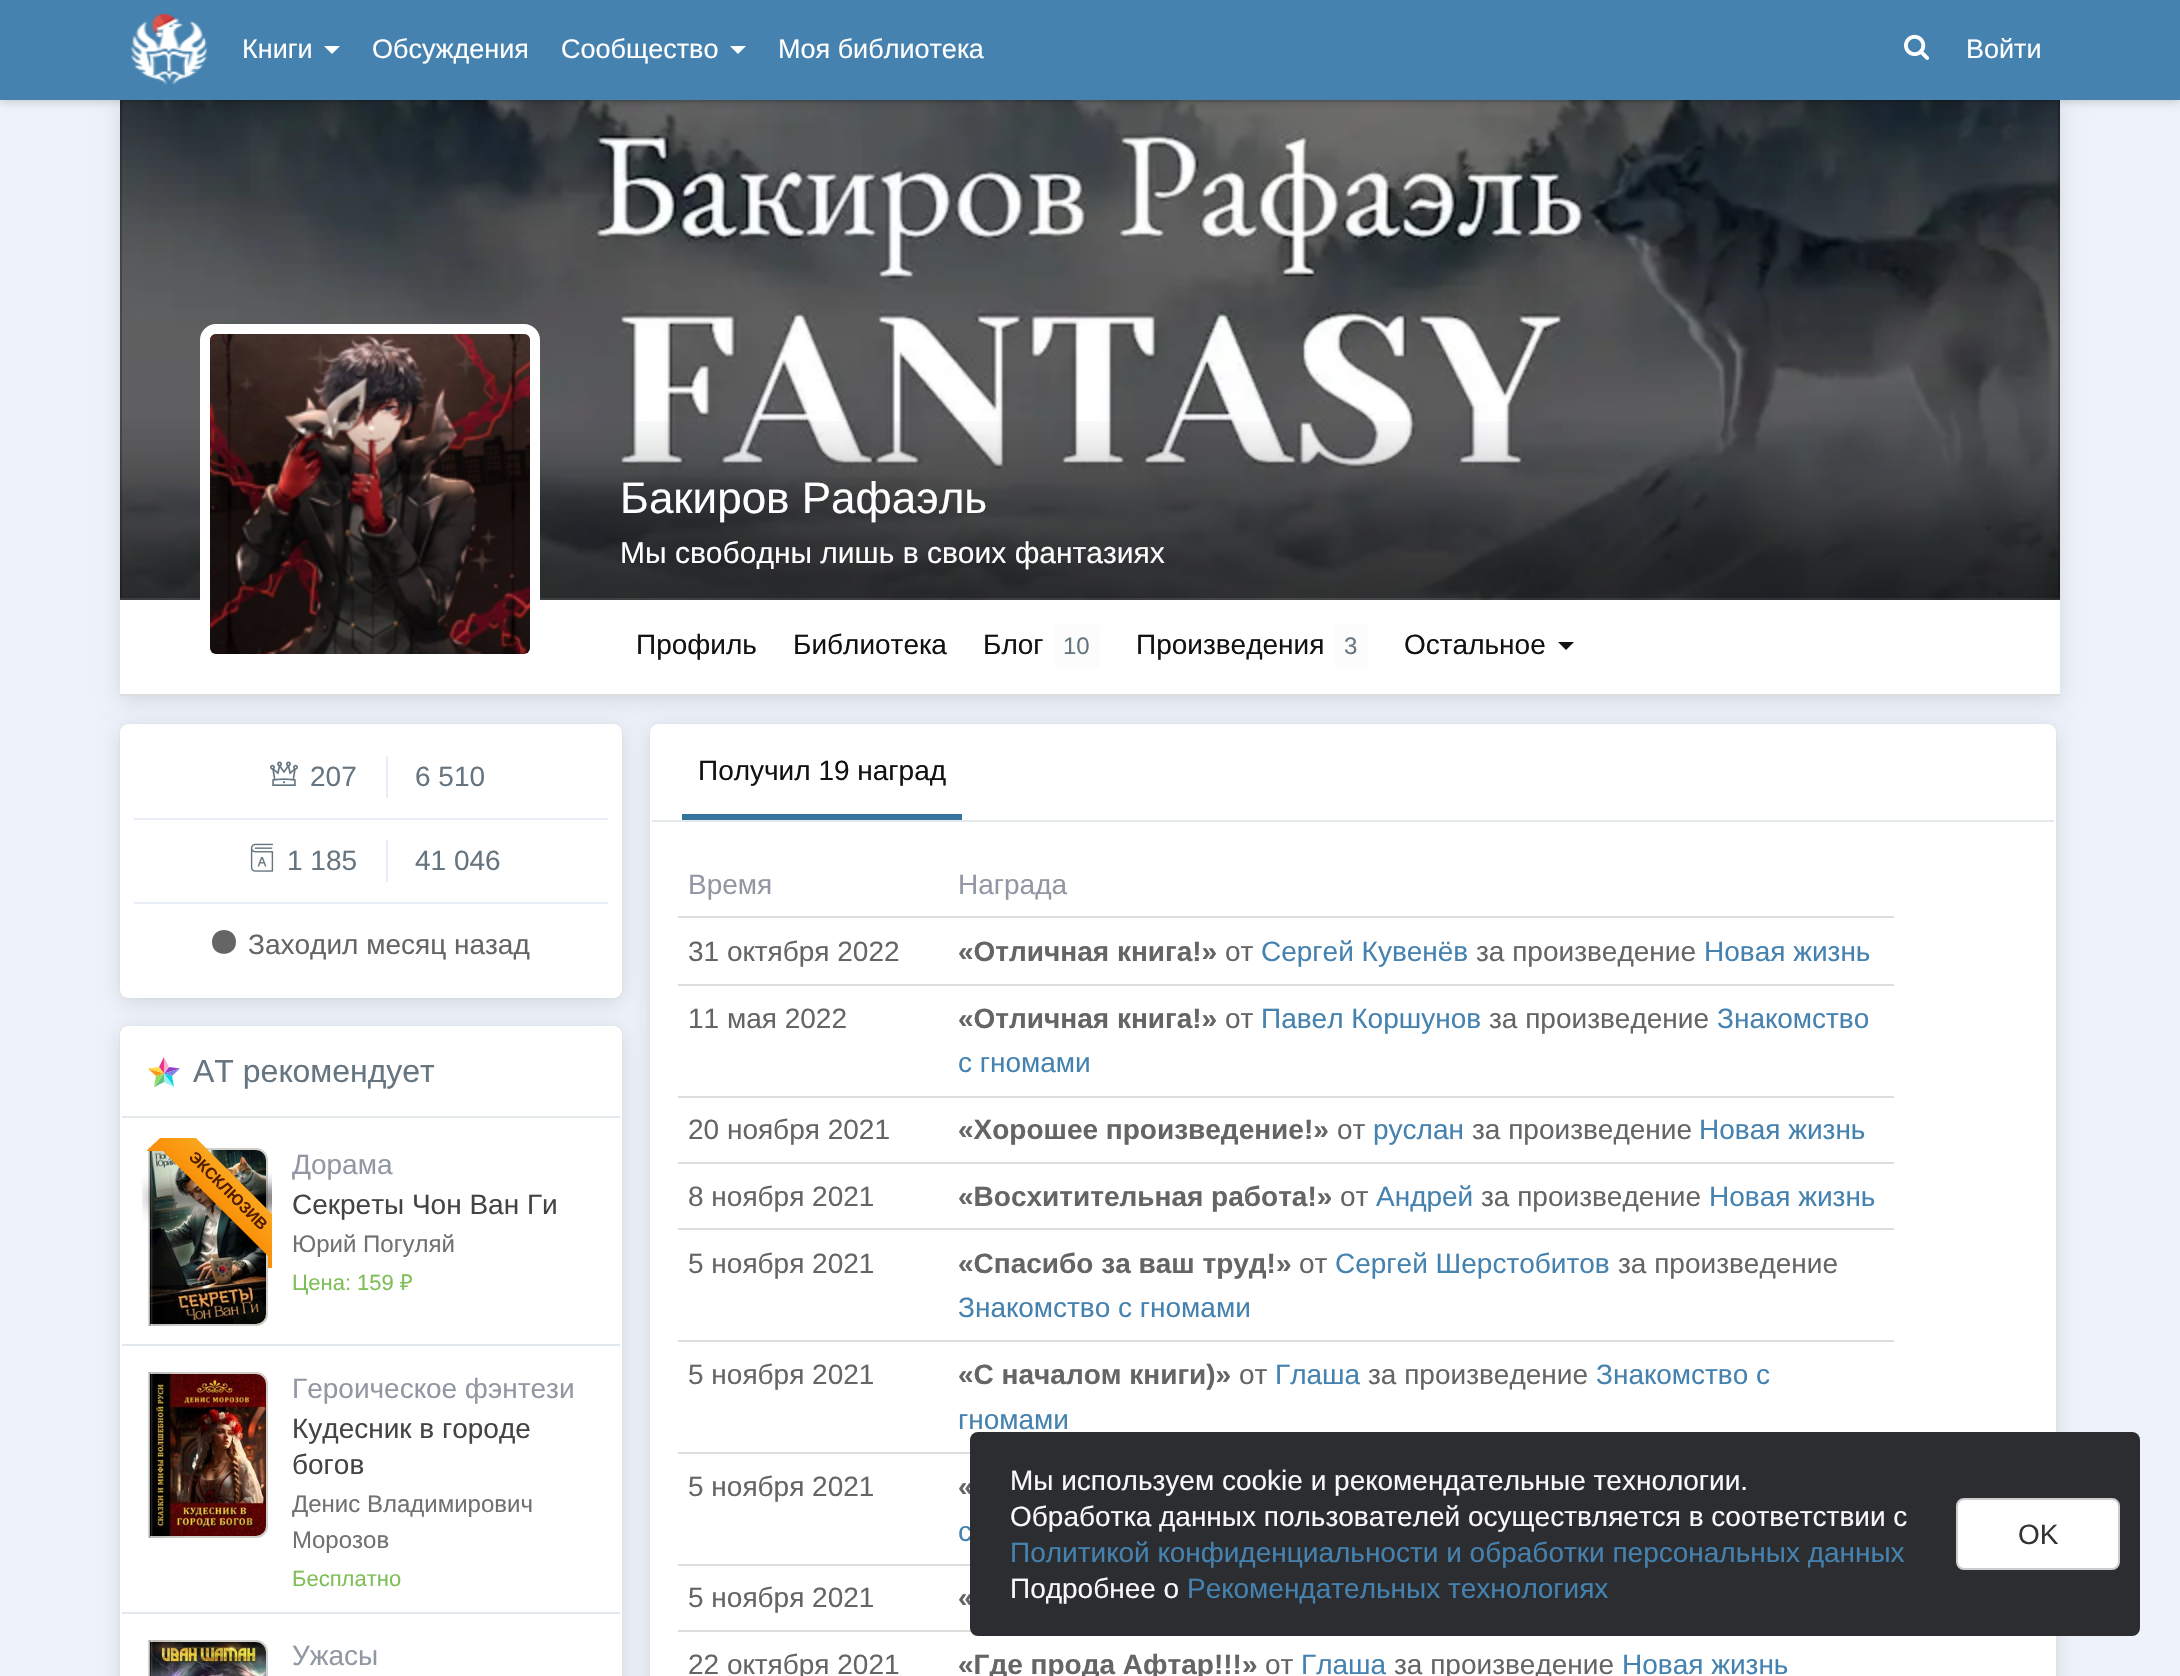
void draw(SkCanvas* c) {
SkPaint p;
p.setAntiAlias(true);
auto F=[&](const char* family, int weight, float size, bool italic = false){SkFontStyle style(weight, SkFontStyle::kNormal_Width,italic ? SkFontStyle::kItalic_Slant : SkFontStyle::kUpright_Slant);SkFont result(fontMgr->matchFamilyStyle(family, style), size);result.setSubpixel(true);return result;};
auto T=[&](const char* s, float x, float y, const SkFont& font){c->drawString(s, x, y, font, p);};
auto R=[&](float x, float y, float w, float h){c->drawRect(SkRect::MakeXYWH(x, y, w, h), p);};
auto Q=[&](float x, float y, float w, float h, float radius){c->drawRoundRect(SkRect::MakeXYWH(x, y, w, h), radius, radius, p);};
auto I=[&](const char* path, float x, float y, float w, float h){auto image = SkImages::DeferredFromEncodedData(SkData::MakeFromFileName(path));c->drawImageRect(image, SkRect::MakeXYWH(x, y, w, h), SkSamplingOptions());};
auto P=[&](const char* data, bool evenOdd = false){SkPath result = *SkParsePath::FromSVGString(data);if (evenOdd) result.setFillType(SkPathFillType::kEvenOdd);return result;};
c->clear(0xffeef3fb);
p.setColor(0x1f000000);
p.setMaskFilter(SkMaskFilter::MakeBlur(kNormal_SkBlurStyle, 10));
c->drawRect(SkRect::MakeXYWH(120,104,1940,596),p);
p.setMaskFilter(nullptr);
I("3.png",120,100,1940,500);
p.setColor(0x1a000000);
c->drawPath(P("M120 100h1940l-2 2h-1936z"),p);
I("4.png",120,421,1940,177);
p.setColor(0x40000000);
c->drawPath(P("M2060 100v500l-2-2v-496z"),p);
c->drawPath(P("M2060 600h-1940l2-2h1936z"),p);
c->drawPath(P("M120 600v-500l2 2v496z"),p);
p.setMaskFilter(SkMaskFilter::MakeBlur(kNormal_SkBlurStyle, 5));
c->drawRect(SkRect::MakeXYWH(0,0,2180,100),p);
p.setMaskFilter(nullptr);
p.setColor(0xff4582af);
R(0,0,2180,100);
I("1.png",131,14,77,71);
auto f1 = F("Liberation Sans",400,27);
p.setColor(0xffffffff);
T("Книги",242,58,f1);
c->drawPath(P("M324 46h16l-8 8z"),p);
T("Обсуждения",372,58,f1);
T("Сообщество",561,58,f1);
c->drawPath(P("M730 46h16l-8 8z"),p);
T("Моя библиотека",778,58,f1);
I("2.png",1904,34,25,26);
T("Войти",1966,58,f1);
auto f2 = F("Liberation Sans",400,44);
T("Бакиров Рафаэль",620,513,f2);
auto f3 = F("Liberation Sans",400,30);
T("Мы свободны лишь в своих фантазиях",620,563,f3);
p.setColor(0xffdddddd);
R(120,694,1940,2);
p.setColor(0xffffffff);
R(120,600,1940,94);
p.setStroke(true);
p.setStrokeWidth(10);
c->drawRoundRect(SkRect::MakeXYWH(205,329,330,330),11,11,p);
I("5.png",210,334,320,320);
auto f4 = F("Liberation Sans",400,28);
p.setStroke(false);
p.setColor(0xff121212);
T("Профиль",636,654,f4);
T("Библиотека",793,654,f4);
T("Блог",983,654,f4);
p.setColor(0xfffcfcfc);
Q(1054,624,46,44,4);
auto f5 = F("Liberation Sans",400,24);
p.setColor(0xff66757f);
T("10",1063,654,f5);
p.setColor(0xff121212);
T("Произведения",1136,654,f4);
p.setColor(0xfffcfcfc);
Q(1334,624,34,44,4);
p.setColor(0xff66757f);
T("3",1344,654,f5);
p.setColor(0xff121212);
T("Остальное",1404,654,f4);
c->drawPath(P("M1558 642h16l-8 8z"),p);
p.setColor(0x1f000000);
p.setMaskFilter(SkMaskFilter::MakeBlur(kNormal_SkBlurStyle, 10));
c->drawRoundRect(SkRect::MakeXYWH(120,728,502,274),8,8,p);
p.setMaskFilter(nullptr);
p.setMaskFilter(SkMaskFilter::MakeBlur(kNormal_SkBlurStyle, .5));
c->drawRoundRect(SkRect::MakeXYWH(120,724,502,274),8,8,p);
p.setMaskFilter(nullptr);
p.setColor(0xffffffff);
Q(120,724,502,274,8);
p.setColor(0xffe9edf8);
R(134,818,474,2);
I("6.png",270,761,28,25);
p.setColor(0xff66757f);
T("207",310,786,f4);
p.setColor(0xffe9edf8);
R(386,756,2,42);
p.setColor(0xff66757f);
T("6 510",415,786,f4);
p.setColor(0xffe9edf8);
R(134,902,474,2);
I("7.png",250,843,24,29);
p.setColor(0xff66757f);
T("1 185",287,870,f4);
p.setColor(0xffe9edf8);
R(386,840,2,42);
p.setColor(0xff66757f);
T("41 046",415,870,f4);
p.setColor(0xff656565);
c->drawPath(P("M236 942c0 15.5-24 16-24 0c0-16 24-16 24 0z"),p);
T("Заходил месяц назад",248,954,f4);
p.setColor(0x1f000000);
p.setMaskFilter(SkMaskFilter::MakeBlur(kNormal_SkBlurStyle, 10));
c->drawRoundRect(SkRect::MakeXYWH(120,1030,502,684),8,8,p);
p.setMaskFilter(nullptr);
p.setMaskFilter(SkMaskFilter::MakeBlur(kNormal_SkBlurStyle, .5));
c->drawRoundRect(SkRect::MakeXYWH(120,1026,502,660),8,8,p);
p.setMaskFilter(nullptr);
p.setColor(0xffffffff);
Q(120,1026,502,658,8);
p.setColor(0xffe1e8ed);
R(122,1344,498,2);
R(122,1612,498,2);
p.setColor(0x1f000000);
p.setMaskFilter(SkMaskFilter::MakeBlur(kNormal_SkBlurStyle, 10));
c->drawRoundRect(SkRect::MakeXYWH(650,728,1406,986),8,8,p);
p.setMaskFilter(nullptr);
p.setColor(0xffe4eaec);
R(122,1116,498,2);
I("8.png",154,1073,10,15);
p.setColor(0xffff9811);
c->drawPath(P("M156 1076l8-2.5l-16-5z"),p);
p.setColor(0xffea348b);
c->drawPath(P("M164 1073.5v-16.5l-5 10z"),p);
p.setColor(0xff933ec5);
c->drawPath(P("M180 1068.5l-11-1.5l-5 6.5z"),p);
p.setColor(0xff00d7df);
c->drawPath(P("M172 1076l-8-2.5l10 13.5z"),p);
p.setColor(0xfff7aed1);
c->drawPath(P("M169 1067l-5-10v16.5z"),p);
p.setColor(0xffffda44);
c->drawPath(P("M159 1067l-11 1.5l16 5z"),p);
p.setColor(0xff99eff2);
c->drawPath(P("M164 1082l10 5l-10-13.5z"),p);
p.setColor(0xff7c84e8);
c->drawPath(P("M172 1076l8-7.5l-16 5z"),p);
p.setColor(0xff91dc5a);
c->drawPath(P("M156 1076l-2 11l10-13.5z"),p);
auto f6 = F("Liberation Sans",400,32);
p.setColor(0xff66757f);
T("AT рекомендует",193,1082,f6);
p.setColor(0xfff6f4ee);
c->drawPath(P("M148 1148h108c6.5 0 12 5.5 12 12v154c0 6.5-5.5 12-12 12h-108z"),p);
p.setStroke(true);
p.setStrokeWidth(2);
p.setColor(0x26000000);
c->drawPath(P("M149 1149h107c6 0 11 5 11 11v154c0 6-5 11-11 11h-107z"),p);
I("9.png",150,1150,116,174);
I("10.png",148,1148,35,178);
c->save();
c->clipRect(SkRect::MakeXYWH(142,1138,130,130));
p.setStroke(false);
p.setColor(0xff000000);
p.setMaskFilter(SkMaskFilter::MakeBlur(kNormal_SkBlurStyle, 10));
c->drawRect(SkRect::MakeXYWH(152,1192,152,12),p);
p.setMaskFilter(nullptr);
c->restore();
c->save();
c->clipRect(SkRect::MakeXYWH(142,1138,130,130));
{
const SkColor colors[] = {0xfffaa61e,0xfffa9108};
const float stops[] = {0,1};
const SkPoint ends[] = {{238,1181}, {216,1203}};
p.setShader(SkGradientShader::MakeLinear(ends, colors, stops, 2, SkTileMode::kClamp));
p.setAlpha(255);
}
c->drawPath(P("M178 1120l121 121l-23 23l-121-121z"),p);
c->restore();
p.setShader(nullptr);
p.setColor(0xfffa9108);
c->drawPath(P("M155 1142.5l8.5 8.5h-8.5zm-8.5 8.5l8.5-8.5v8.5z"),p);
auto f7 = F("Liberation Sans",700,16);
p.setColor(0xff541f00);
c->save();
c->rotate(45,188,1158);
T("ЭКСКЛЮЗИВ",188,1158,f7);
c->restore();
c->save();
c->clipRect(SkRect::MakeXYWH(142,1138,130,130));
p.setColor(0xfffa9108);
c->drawPath(P("M268 1255.5l8.5 8.5h-8.5zm8.5 8.5l-8.5 8.5v-8.5z"),p);
c->restore();
p.setColor(0xff9197a3);
T("Дорама",292,1174,f4);
p.setColor(0xff444444);
T("Секреты Чон Ван Ги",292,1214,f4);
p.setColor(0xff717171);
T("Юрий Погуляй",292,1252,f5);
auto f8 = F("Liberation Sans",400,22);
p.setColor(0xff80be58);
T("Цена: 159",292,1290,f8);
auto f9 = F("Noto Sans",400,22);
T("₽",400,1290,f9);
p.setColor(0xfff6f4ee);
c->drawPath(P("M148 1372h108c6.5 0 12 5.5 12 12v142c0 6.5-5.5 12-12 12h-108z"),p);
p.setStroke(true);
p.setColor(0x26000000);
c->drawPath(P("M149 1373h107c6 0 11 5 11 11v142c0 6-5 11-11 11h-107z"),p);
I("11.png",150,1374,116,162);
I("12.png",148,1372,35,166);
p.setStroke(false);
p.setColor(0xff9197a3);
T("Героическое фэнтези",292,1398,f4);
p.setColor(0xff444444);
T("Кудесник в городе",292,1438,f4);
T("богов",292,1474,f4);
p.setColor(0xff717171);
T("Денис Владимирович",292,1512,f5);
T("Морозов",292,1548,f5);
p.setColor(0xff80be58);
T("Бесплатно",292,1586,f8);
p.setColor(0xfff6f4ee);
c->drawPath(P("M148 1640h108c6.5 0 12 5.5 12 12v24c0 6.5-5.5 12-12 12h-108z"),p);
p.setStroke(true);
p.setColor(0x26000000);
c->drawPath(P("M149 1641h107c6 0 11 5 11 11v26c0 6-5 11-11 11h-107z"),p);
I("13.png",150,1642,116,34);
I("14.png",148,1640,34,36);
p.setStroke(false);
p.setColor(0xff9197a3);
T("Ужасы",292,1665,f4);
p.setColor(0x1f000000);
p.setMaskFilter(SkMaskFilter::MakeBlur(kNormal_SkBlurStyle, .5));
c->drawRoundRect(SkRect::MakeXYWH(650,724,1406,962),8,8,p);
p.setMaskFilter(nullptr);
p.setColor(0xffffffff);
Q(650,724,1406,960,8);
p.setColor(0xffe4eaec);
R(652,820,1402,2);
p.setColor(0xff34749e);
R(682,814,280,6);
p.setColor(0xff121212);
T("Получил 19 наград",698,780,f4);
p.setColor(0xff9197a3);
T("Время",688,894,f4);
T("Награда",958,894,f4);
p.setColor(0xff656565);
T("31 октября 2022",688,961,f4);
p.setColor(0xffdddddd);
R(678,916,1216,2);
auto f10 = F("Liberation Sans",700,28);
p.setColor(0xff656565);
T("«Отличная книга!»",958,961,f10);
T("от",1225,961,f4);
p.setColor(0xff4582af);
T("Сергей Кувенёв",1261,961,f4);
p.setColor(0xff656565);
T("за произведение",1476,961,f4);
p.setColor(0xff4582af);
T("Новая жизнь",1704,961,f4);
p.setColor(0xff656565);
T("11 мая 2022",688,1028,f4);
p.setColor(0xffdddddd);
R(678,984,1216,2);
p.setColor(0xff656565);
T("«Отличная книга!»",958,1028,f10);
T("от",1225,1028,f4);
p.setColor(0xff4582af);
T("Павел Коршунов",1261,1028,f4);
p.setColor(0xff656565);
T("за произведение",1489,1028,f4);
p.setColor(0xff4582af);
T("Знакомство",1717,1028,f4);
T("с гномами",958,1072,f4);
p.setColor(0xff656565);
T("20 ноября 2021",688,1139,f4);
p.setColor(0xffdddddd);
R(678,1096,1216,2);
p.setColor(0xff656565);
T("«Хорошее произведение!»",958,1139,f10);
T("от",1337,1139,f4);
p.setColor(0xff4582af);
T("руслан",1373,1139,f4);
p.setColor(0xff656565);
T("за произведение",1472,1139,f4);
p.setColor(0xff4582af);
T("Новая жизнь",1699,1139,f4);
p.setColor(0xff656565);
T("8 ноября 2021",688,1206,f4);
p.setColor(0xffdddddd);
R(678,1162,1216,2);
p.setColor(0xff656565);
T("«Восхитительная работа!»",958,1206,f10);
T("от",1340,1206,f4);
p.setColor(0xff4582af);
T("Андрей",1376,1206,f4);
p.setColor(0xff656565);
T("за произведение",1481,1206,f4);
p.setColor(0xff4582af);
T("Новая жизнь",1709,1206,f4);
p.setColor(0xff656565);
T("5 ноября 2021",688,1273,f4);
p.setColor(0xffdddddd);
R(678,1228,1216,2);
p.setColor(0xff656565);
T("«Спасибо за ваш труд!»",958,1273,f10);
T("от",1299,1273,f4);
p.setColor(0xff4582af);
T("Сергей Шерстобитов",1335,1273,f4);
p.setColor(0xff656565);
T("за произведение",1618,1273,f4);
p.setColor(0xff4582af);
T("Знакомство с гномами",958,1317,f4);
p.setColor(0xff656565);
T("5 ноября 2021",688,1384,f4);
p.setColor(0xffdddddd);
R(678,1340,1216,2);
p.setColor(0xff656565);
T("«С началом книги)»",958,1384,f10);
T("от",1239,1384,f4);
p.setColor(0xff4582af);
T("Глаша",1275,1384,f4);
p.setColor(0xff656565);
T("за произведение",1368,1384,f4);
p.setColor(0xff4582af);
T("Знакомство с",1596,1384,f4);
T("гномами",958,1429,f4);
p.setColor(0xff656565);
T("5 ноября 2021",688,1496,f4);
p.setColor(0xffdddddd);
R(678,1452,292,2);
p.setColor(0xff656565);
T("«",958,1496,f10);
p.setColor(0xff4582af);
T("с",958,1541,f4);
p.setColor(0xff656565);
T("5 ноября 2021",688,1607,f4);
p.setColor(0xffdddddd);
R(678,1564,292,2);
p.setColor(0xff656565);
T("«",958,1607,f10);
T("22 октября 2021",688,1674,f4);
p.setColor(0xffdddddd);
R(678,1630,294,2);
p.setColor(0xff656565);
T("«Где прода Афтар!!!»",958,1674,f10);
T("от",1265,1674,f4);
p.setColor(0xff4582af);
T("Глаша",1301,1674,f4);
p.setColor(0xff656565);
T("за произведение",1394,1674,f4);
p.setColor(0xff4582af);
T("Новая жизнь",1622,1674,f4);
p.setColor(0xff2b2d31);
Q(970,1432,1170,204,8);
p.setColor(0xfff9f9f9);
T("Мы используем cookie и рекомендательные технологии.",1010,1490,f4);
T("Обработка данных пользователей осуществляется в соответствии с",1010,1526,f4);
p.setColor(0xff4582af);
T("Политикой конфиденциальности и обработки персональных данных",1010,1562,f4);
p.setColor(0xfff9f9f9);
T("Подробнее о",1010,1598,f4);
p.setColor(0xff4582af);
T("Рекомендательных технологиях",1187,1598,f4);
p.setColor(0xffffffff);
c->drawRoundRect(SkRect::MakeXYWH(1957,1499,162,70),7,7,p);
p.setStroke(true);
p.setColor(0xffcccccc);
c->drawRoundRect(SkRect::MakeXYWH(1957,1499,162,70),7,7,p);
p.setStroke(false);
p.setColor(0xff333333);
T("OK",2018,1544,f4);
}
